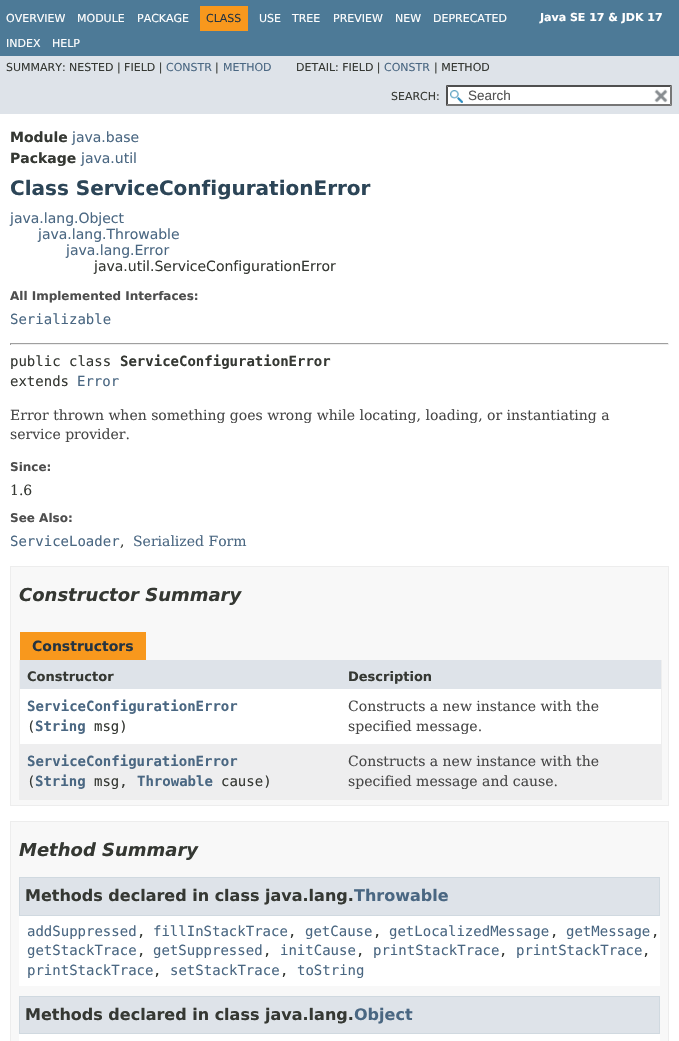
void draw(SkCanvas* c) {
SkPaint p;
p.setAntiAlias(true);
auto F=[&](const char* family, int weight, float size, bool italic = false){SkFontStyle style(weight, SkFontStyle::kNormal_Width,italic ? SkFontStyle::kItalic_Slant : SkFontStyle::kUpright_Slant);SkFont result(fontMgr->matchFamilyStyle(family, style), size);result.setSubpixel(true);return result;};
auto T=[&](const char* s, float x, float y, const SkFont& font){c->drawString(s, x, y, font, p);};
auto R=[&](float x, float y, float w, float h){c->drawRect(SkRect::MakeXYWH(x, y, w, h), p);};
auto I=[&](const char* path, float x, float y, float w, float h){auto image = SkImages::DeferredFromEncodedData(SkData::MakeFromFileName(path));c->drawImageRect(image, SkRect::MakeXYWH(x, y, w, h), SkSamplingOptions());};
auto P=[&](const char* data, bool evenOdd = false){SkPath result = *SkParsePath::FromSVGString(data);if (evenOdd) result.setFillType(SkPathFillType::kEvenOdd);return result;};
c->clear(0xffffffff);
p.setColor(0xff4d7a97);
R(0,0,679,56);
auto f1 = F("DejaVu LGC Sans",400,11);
p.setColor(0xffffffff);
T("OVERVIEW",6,22,f1);
T("MODULE",77,22,f1);
T("PACKAGE",137,22,f1);
p.setColor(0xfff8981d);
R(200,6,48,25);
p.setColor(0xff253441);
T("CLASS",206,22,f1);
p.setColor(0xffffffff);
T("USE",259,22,f1);
T("TREE",292,22,f1);
T("PREVIEW",333,22,f1);
T("NEW",395,22,f1);
T("DEPRECATED",433,22,f1);
T("INDEX",6,47,f1);
T("HELP",52,47,f1);
auto f2 = F("DejaVu LGC Sans",700,11);
T("Java SE 17 & JDK 17",540,21,f2);
p.setColor(0xffdee3e9);
R(0,56,679,58);
p.setColor(0xff353833);
T("SUMMARY: NESTED | FIELD |",6,71,f1);
p.setColor(0xff4a6782);
T("CONSTR",166,71,f1);
p.setColor(0xff353833);
T("|",215,71,f1);
p.setColor(0xff4a6782);
T("METHOD",223,71,f1);
p.setColor(0xff353833);
T("DETAIL: FIELD |",296,71,f1);
p.setColor(0xff4a6782);
T("CONSTR",384,71,f1);
p.setColor(0xff353833);
T("| METHOD",434,71,f1);
T("SEARCH:",391,100,f1);
p.setColor(0xffffffff);
R(446,85,226,21);
I("1.png",450,90,13,13);
p.setColor(0xff4f4f4f);
c->drawPath(P("M446 85h226l-2 2h-222z"),p);
p.setColor(0xff767676);
c->drawPath(P("M672 85v21l-2-2v-17z"),p);
c->drawPath(P("M672 106h-226l2-2h222z"),p);
p.setColor(0xff4f4f4f);
c->drawPath(P("M446 106v-21l2 2v17z"),p);
auto f3 = F("Liberation Sans",400,13.5);
p.setColor(0xff545454);
T("Search",468,100,f3);
I("2.png",654,89,14,14);
auto f4 = F("DejaVu LGC Sans",700,14);
p.setColor(0xff353833);
T("Module",10,142,f4);
auto f5 = F("DejaVu LGC Sans",400,14);
p.setColor(0xff4a6782);
T("java.base",72,142,f5);
p.setColor(0xff353833);
T("Package",10,163,f4);
p.setColor(0xff4a6782);
T("java.util",81,163,f5);
auto f6 = F("DejaVu LGC Sans",700,20);
p.setColor(0xff2c4557);
T("Class ServiceConfigurationError",10,195,f6);
p.setColor(0xff4a6782);
T("java.lang.Object",10,223,f5);
T("java.lang.Throwable",38,239,f5);
T("java.lang.Error",66,255,f5);
p.setColor(0xff353833);
T("java.util.ServiceConfigurationError",94,271,f5);
auto f7 = F("DejaVu LGC Sans",700,12);
p.setColor(0xff4e4e4e);
T("All Implemented Interfaces:",10,300,f7);
auto f8 = F("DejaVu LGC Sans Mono",400,14);
p.setColor(0xff4a6782);
T("Serializable",10,324,f8);
p.setColor(0xff9f9f9f);
R(10,343,659,1);
p.setColor(0xffeeeeee);
R(668,343,1,2);
R(10,344,659,1);
p.setColor(0xff9f9f9f);
R(10,343,1,2);
p.setColor(0xff353833);
T("public class",10,366,f8);
auto f9 = F("DejaVu LGC Sans Mono",700,14);
T("ServiceConfigurationError",120,366,f9);
T("extends",10,386,f8);
p.setColor(0xff4a6782);
T("Error",77,386,f8);
auto f10 = F("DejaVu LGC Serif",400,14);
p.setColor(0xff474747);
T("Error thrown when something goes wrong while locating, loading, or instantiating a",10,420,f10);
T("service provider.",10,439,f10);
p.setColor(0xff4e4e4e);
T("Since:",10,471,f7);
p.setColor(0xff353833);
T("1.6",10,495,f10);
p.setColor(0xff4e4e4e);
T("See Also:",10,522,f7);
p.setColor(0xff4a6782);
T("ServiceLoader",10,546,f8);
p.setColor(0xff353833);
T(",",120,546,f10);
p.setColor(0xff4a6782);
T("Serialized Form",133,546,f10);
p.setColor(0xfff8f8f8);
c->drawRect(SkRect::MakeXYWH(10.5,566.5,658,239),p);
p.setStroke(true);
p.setStrokeWidth(1);
p.setColor(0xffededed);
c->drawRect(SkRect::MakeXYWH(10.5,566.5,658,239),p);
auto f11 = F("DejaVu LGC Sans",700,18,true);
p.setStroke(false);
p.setColor(0xff353833);
T("Constructor Summary",19,601,f11);
p.setColor(0xfff8981d);
R(20,632,126,28);
p.setColor(0xff253441);
T("Constructors",32,651,f4);
p.setColor(0xffeeeeee);
R(661,660,1,140);
R(19,799,643,1);
R(19,660,1,140);
p.setColor(0xffdee3e9);
R(20,660,641,29);
auto f12 = F("DejaVu LGC Sans",700,13);
p.setColor(0xff353833);
T("Constructor",27,681,f12);
T("Description",348,681,f12);
p.setColor(0xffffffff);
R(20,689,641,55);
p.setColor(0xff4a6782);
T("ServiceConfigurationError",27,711,f9);
p.setColor(0xff353833);
T("(",27,731,f8);
p.setColor(0xff4a6782);
T("String",35,731,f9);
p.setColor(0xff353833);
T("msg)",94,731,f8);
p.setColor(0xff474747);
T("Constructs a new instance with the",348,711,f10);
T("specified message.",348,731,f10);
p.setColor(0xffeeeeef);
R(20,744,641,55);
p.setColor(0xff4a6782);
T("ServiceConfigurationError",27,766,f9);
p.setColor(0xff353833);
T("(",27,786,f8);
p.setColor(0xff4a6782);
T("String",35,786,f9);
p.setColor(0xff353833);
T("msg,",94,786,f8);
p.setColor(0xff4a6782);
T("Throwable",137,786,f9);
p.setColor(0xff353833);
T("cause)",221,786,f8);
p.setColor(0xff474747);
T("Constructs a new instance with the",348,766,f10);
T("specified message and cause.",348,786,f10);
p.setColor(0xfff8f8f8);
c->drawRect(SkRect::MakeXYWH(10.5,821.5,658,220),p);
p.setStroke(true);
p.setColor(0xffededed);
c->drawRect(SkRect::MakeXYWH(10.5,821.5,658,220),p);
p.setStroke(false);
p.setColor(0xff353833);
T("Method Summary",19,856,f11);
p.setColor(0xffffffff);
R(19,916,641,70);
p.setColor(0xffdee3e9);
c->drawRect(SkRect::MakeXYWH(19.5,877.5,640,38),p);
p.setStroke(true);
p.setColor(0xffd0d9e0);
c->drawRect(SkRect::MakeXYWH(19.5,877.5,640,38),p);
auto f13 = F("DejaVu LGC Sans",700,16);
p.setStroke(false);
p.setColor(0xff353833);
T("Methods declared in class java.lang.",25,901,f13);
p.setColor(0xff4a6782);
T("Throwable",354,901,f13);
T("addSuppressed",27,936,f8);
p.setColor(0xff353833);
T(",",137,936,f8);
p.setColor(0xff4a6782);
T("fillInStackTrace",153,936,f8);
p.setColor(0xff353833);
T(",",288,936,f8);
p.setColor(0xff4a6782);
T("getCause",305,936,f8);
p.setColor(0xff353833);
T(",",373,936,f8);
p.setColor(0xff4a6782);
T("getLocalizedMessage",389,936,f8);
p.setColor(0xff353833);
T(",",550,936,f8);
p.setColor(0xff4a6782);
T("getMessage",566,936,f8);
p.setColor(0xff353833);
T(",",651,936,f8);
p.setColor(0xff4a6782);
T("getStackTrace",27,955,f8);
p.setColor(0xff353833);
T(",",137,955,f8);
p.setColor(0xff4a6782);
T("getSuppressed",153,955,f8);
p.setColor(0xff353833);
T(",",263,955,f8);
p.setColor(0xff4a6782);
T("initCause",280,955,f8);
p.setColor(0xff353833);
T(",",356,955,f8);
p.setColor(0xff4a6782);
T("printStackTrace",373,955,f8);
p.setColor(0xff353833);
T(",",499,955,f8);
p.setColor(0xff4a6782);
T("printStackTrace",516,955,f8);
p.setColor(0xff353833);
T(",",642,955,f8);
p.setColor(0xff4a6782);
T("printStackTrace",27,975,f8);
p.setColor(0xff353833);
T(",",153,975,f8);
p.setColor(0xff4a6782);
T("setStackTrace",170,975,f8);
p.setColor(0xff353833);
T(",",280,975,f8);
p.setColor(0xff4a6782);
T("toString",297,975,f8);
p.setColor(0xffffffff);
R(19,1034,641,7);
p.setColor(0xffdee3e9);
c->drawRect(SkRect::MakeXYWH(19.5,996.5,640,37),p);
p.setStroke(true);
p.setColor(0xffd0d9e0);
c->drawRect(SkRect::MakeXYWH(19.5,996.5,640,37),p);
p.setStroke(false);
p.setColor(0xff353833);
T("Methods declared in class java.lang.",25,1020,f13);
p.setColor(0xff4a6782);
T("Object",354,1020,f13);
}
